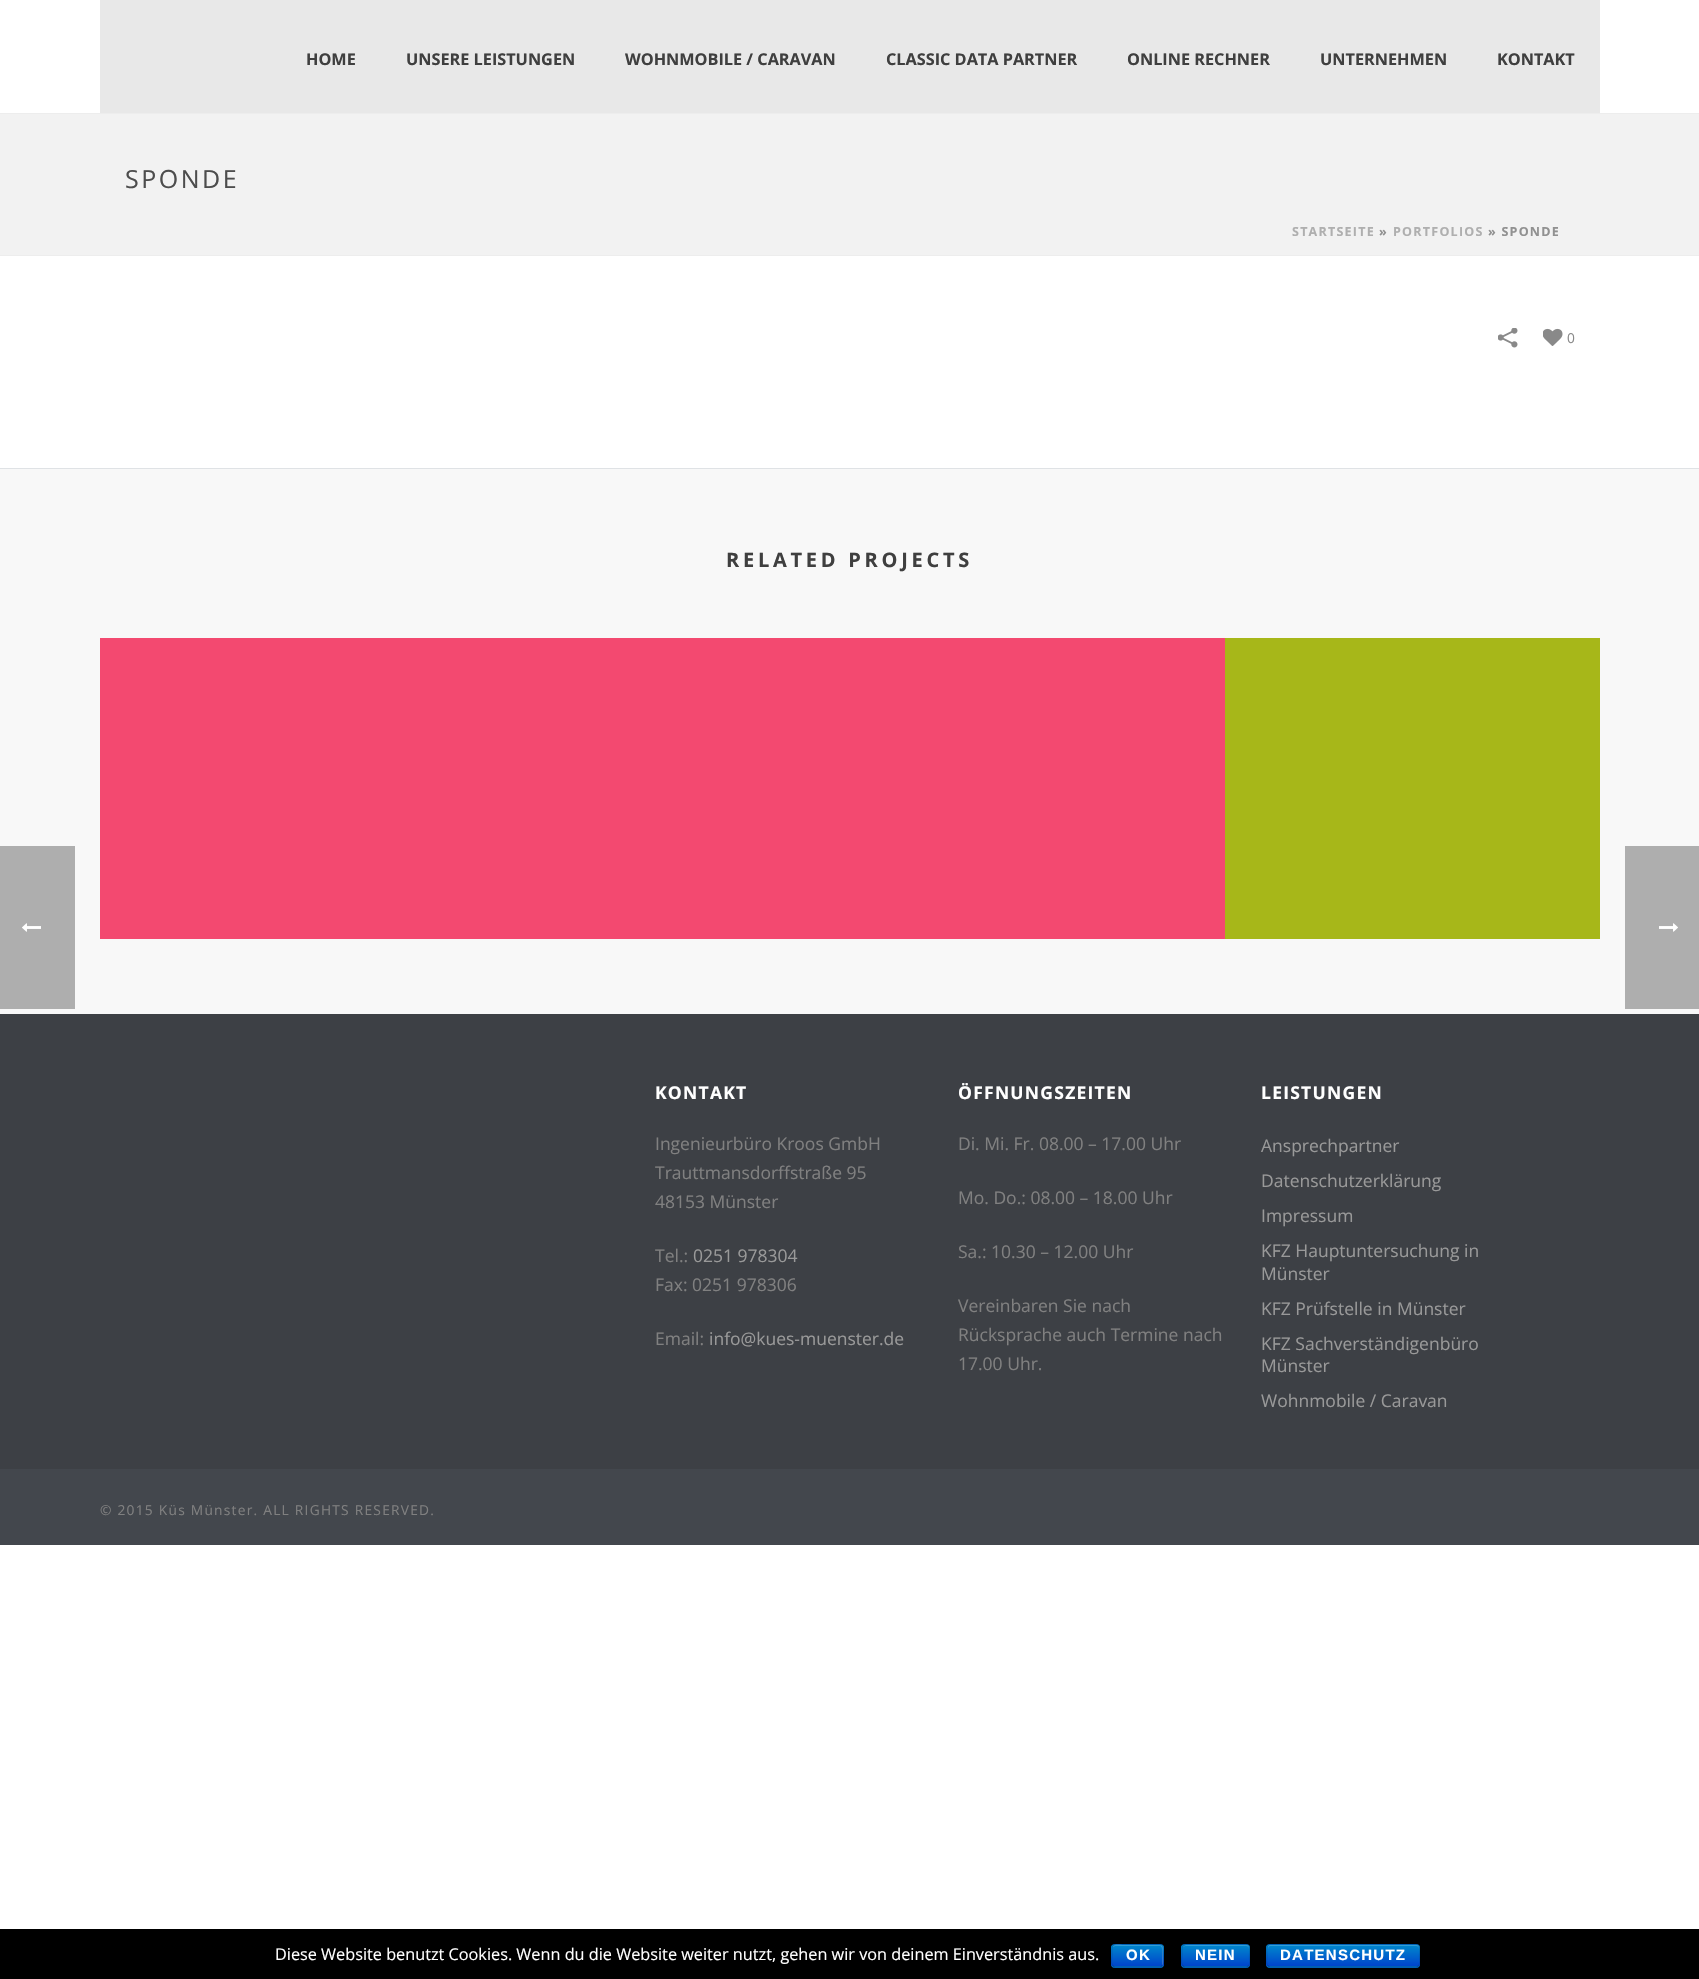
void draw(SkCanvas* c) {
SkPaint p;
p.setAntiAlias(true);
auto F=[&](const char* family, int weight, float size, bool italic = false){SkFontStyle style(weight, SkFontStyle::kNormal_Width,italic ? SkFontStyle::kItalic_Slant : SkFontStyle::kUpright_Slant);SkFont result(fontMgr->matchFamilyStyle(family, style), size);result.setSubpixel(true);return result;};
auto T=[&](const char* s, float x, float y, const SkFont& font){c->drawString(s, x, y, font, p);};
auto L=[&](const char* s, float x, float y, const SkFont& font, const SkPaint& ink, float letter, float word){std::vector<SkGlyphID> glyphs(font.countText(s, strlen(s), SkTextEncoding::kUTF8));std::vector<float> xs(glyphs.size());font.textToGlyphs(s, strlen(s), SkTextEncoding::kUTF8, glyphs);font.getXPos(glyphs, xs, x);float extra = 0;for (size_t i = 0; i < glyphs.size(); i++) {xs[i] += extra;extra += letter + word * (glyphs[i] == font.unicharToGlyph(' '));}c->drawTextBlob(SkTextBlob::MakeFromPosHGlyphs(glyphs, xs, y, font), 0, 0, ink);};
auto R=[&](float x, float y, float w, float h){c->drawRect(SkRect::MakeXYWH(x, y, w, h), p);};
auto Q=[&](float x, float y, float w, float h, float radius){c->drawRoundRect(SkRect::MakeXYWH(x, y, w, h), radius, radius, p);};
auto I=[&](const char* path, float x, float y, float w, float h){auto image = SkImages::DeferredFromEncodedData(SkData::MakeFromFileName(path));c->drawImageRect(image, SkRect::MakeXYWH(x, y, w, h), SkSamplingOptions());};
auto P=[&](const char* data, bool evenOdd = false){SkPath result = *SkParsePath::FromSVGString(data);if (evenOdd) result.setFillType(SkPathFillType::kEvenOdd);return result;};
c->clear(0xffffffff);
p.setColor(0xfff8f8f8);
R(0,469,1699,545);
p.setColor(0xffaeaeae);
R(0,846,75,163);
I("1.png",22,923,19,9);
p.setColor(0xfff2f2f2);
R(0,114,1699,141);
p.setColor(0xffededed);
R(0,255,1699,1);
R(0,113,1699,1);
p.setColor(0xffe8e8e8);
R(100,0,1500,113);
auto f1 = F("Open Sans",700,16.25);
p.setColor(0xff3f3f3f);
T("HOME",306,65,f1);
T("UNSERE LEISTUNGEN",406,65,f1);
T("WOHNMOBILE / CARAVAN",625,65,f1);
T("CLASSIC DATA PARTNER",886,65,f1);
T("ONLINE RECHNER",1127,65,f1);
T("UNTERNEHMEN",1320,65,f1);
T("KONTAKT",1497,65,f1);
auto f2 = F("Open Sans",400,25);
p.setColor(0xff4d4d4d);
L("SPONDE",125,188,f2,p,2.5,0);
auto f3 = F("Open Sans",700,12.5);
p.setColor(0xffafafaf);
L("STARTSEITE",1292,236,f3,p,1.25,0);
p.setColor(0xff919191);
L("»",1379,236,f3,p,1.25,0);
p.setColor(0xffafafaf);
L("PORTFOLIOS",1393,236,f3,p,1.25,0);
p.setColor(0xff919191);
L("» SPONDE",1488,236,f3,p,1.25,0);
I("2.png",1498,328,20,20);
I("3.png",1543,328,20,18);
auto f4 = F("Open Sans",400,13.75);
p.setColor(0xff898989);
T("0",1567,343,f4);
p.setColor(0xffdfe2e5);
R(0,468,1699,1);
auto f5 = F("Open Sans",700,20);
p.setColor(0xff3f3f3f);
L("RELATED PROJECTS",726,567,f5,p,3.75,0);
p.setColor(0xfff34970);
R(100,638,1125,301);
p.setColor(0xffa7b719);
R(1225,638,375,301);
p.setColor(0xff3d4045);
R(0,1014,1699,455);
auto f6 = F("Open Sans",700,17.5);
p.setColor(0xffffffff);
L("KONTAKT",655,1099,f6,p,1.25,0);
auto f7 = F("Open Sans",400,17.5);
p.setColor(0xff808080);
T("Ingenieurbüro Kroos GmbH",655,1150,f7);
T("Trauttmansdorffstraße 95",655,1179,f7);
T("48153 Münster",655,1208,f7);
T("Tel.:",655,1262,f7);
p.setColor(0xff999999);
T("0251 978304",693,1262,f7);
p.setColor(0xff808080);
T("Fax: 0251 978306",655,1291,f7);
T("Email:",655,1345,f7);
p.setColor(0xff999999);
T("info@kues-muenster.de",709,1345,f7);
p.setColor(0xffffffff);
L("ÖFFNUNGSZEITEN",958,1099,f6,p,1.25,0);
p.setColor(0xff808080);
T("Di. Mi. Fr. 08.00 – 17.00 Uhr",958,1150,f7);
T("Mo. Do.: 08.00 – 18.00 Uhr",958,1204,f7);
T("Sa.: 10.30 – 12.00 Uhr",958,1258,f7);
T("Vereinbaren Sie nach",958,1312,f7);
T("Rücksprache auch Termine nach",958,1341,f7);
T("17.00 Uhr.",958,1370,f7);
p.setColor(0xffffffff);
L("LEISTUNGEN",1261,1099,f6,p,1.25,0);
p.setColor(0xff999999);
T("Ansprechpartner",1261,1152,f7);
T("Datenschutzerklärung",1261,1187,f7);
T("Impressum",1261,1222,f7);
T("KFZ Hauptuntersuchung in",1261,1257,f7);
T("Münster",1261,1280,f7);
T("KFZ Prüfstelle in Münster",1261,1315,f7);
T("KFZ Sachverständigenbüro",1261,1350,f7);
T("Münster",1261,1372,f7);
T("Wohnmobile / Caravan",1261,1407,f7);
p.setColor(0xff43474d);
R(0,1469,1699,76);
p.setColor(0xff808080);
L("© 2015 Küs Münster. ALL RIGHTS RESERVED.",100,1515,f4,p,1.25,0);
p.setColor(0xffaeaeae);
R(1625,846,74,163);
I("4.png",1659,923,19,9);
p.setColor(0xff000000);
R(0,1929,1699,50);
auto f8 = F("Open Sans",400,16.25);
p.setColor(0xffffffff);
T("Diese Website benutzt Cookies. Wenn du die Website weiter nutzt, gehen wir von deinem Einverständnis aus.",275,1960,f8);
p.setColor(0xff006dcc);
Q(1111,1944,53,24,4);
c->save();
c->clipPath(P("M1115 1944h45c2 0 4 2 4 4v16c0 2-2 4-4 4h-45c-2 0-4-2-4-4v-16c0-2 2-4 4-4z"),true);
{
const SkColor colors[] = {0xff0088cc,0xff0044cc};
const float stops[] = {0,1};
const SkPoint ends[] = {{1138,1945}, {1138,1966}};
p.setShader(SkGradientShader::MakeLinear(ends, colors, stops, 2, SkTileMode::kClamp));
p.setAlpha(255);
}
R(1111,1945,53,21);
c->restore();
p.setShader(nullptr);
p.setColor(0x33ffffff);
c->drawPath(P("M1115 1946h45c3 0 2 7 2 8v12c2-2 1-8 1-10c0-12 2-11-10-11h-30c-1 0-9-2-10 2z"),p);
p.setStroke(true);
p.setStrokeWidth(1.2);
p.setColor(0x40000000);
c->drawPath(P("M1162 1966l-1.5 1h-46l-1.5-1"),p);
p.setColor(0x1a000000);
c->drawPath(P("M1113 1966c-2.5-2-1-8-1-10.5c0-12-1.5-11 10.5-11h30c12 0 10.5-1 10.5 11c0 2.5 1.5 8.5-1 10.5"),p);
auto f9 = F("Liberation Sans",700,15);
p.setStroke(false);
p.setColor(0xffffffff);
L("OK",1126,1960,f9,p,1.25,0);
p.setColor(0xff006dcc);
Q(1181,1944,69,24,4);
c->save();
c->clipPath(P("M1185 1944h61c2 0 4 2 4 4v16c0 2-2 4-4 4h-61c-2 0-4-2-4-4v-16c0-2 2-4 4-4z"),true);
{
const SkColor colors[] = {0xff0088cc,0xff0044cc};
const float stops[] = {0,1};
const SkPoint ends[] = {{1216,1945}, {1216,1966}};
p.setShader(SkGradientShader::MakeLinear(ends, colors, stops, 2, SkTileMode::kClamp));
p.setAlpha(255);
}
R(1181,1945,69,21);
c->restore();
p.setShader(nullptr);
p.setColor(0x33ffffff);
c->drawPath(P("M1185 1946h61c2 0 3 1 3 3c0-2 0-4-2-4h-61l-2 1l-1 1z"),p);
p.setStroke(true);
p.setColor(0x40000000);
c->drawPath(P("M1248.5 1966l-2 1h-62l-1.5-1"),p);
p.setColor(0x1a000000);
c->drawPath(P("M1183 1966c-2.5-2-1-8-1-10.5c0-13-1-11 13-11h41c16 0 13.5-2 13.5 14c0 2 1 5.5-1 7.5"),p);
p.setStroke(false);
p.setColor(0xffffffff);
L("NEIN",1195,1960,f9,p,1.25,0);
p.setColor(0xff006dcc);
Q(1266,1944,154,24,4);
c->save();
c->clipPath(P("M1270 1944h146c2 0 4 2 4 4v16c0 2-2 4-4 4h-146c-2 0-4-2-4-4v-16c0-2 2-4 4-4z"),true);
{
const SkColor colors[] = {0xff0088cc,0xff0044cc};
const float stops[] = {0,1};
const SkPoint ends[] = {{1343,1945}, {1343,1966}};
p.setShader(SkGradientShader::MakeLinear(ends, colors, stops, 2, SkTileMode::kClamp));
p.setAlpha(255);
}
R(1266,1945,154,21);
c->restore();
p.setShader(nullptr);
p.setColor(0x33ffffff);
c->drawPath(P("M1270 1946h146c2 0 3 1 3 3c0-2 0-4-2-4h-147c-2 0-2 2-2 4c0-2 1-3 2-3z"),p);
p.setStroke(true);
p.setColor(0x40000000);
c->drawPath(P("M1418.5 1966l-2 1h-122h-24.5l-2-1"),p);
p.setColor(0x1a000000);
c->drawPath(P("M1268 1966c-2.5-2-1-8-1-10.5c0-2.5-2-11 3-11h146c5 0 3.5 8.5 3.5 11c0 2.5 1 8.5-1 10.5"),p);
p.setStroke(false);
p.setColor(0xffffffff);
L("DATENSCHUTZ",1280,1960,f9,p,1.25,0);
}
